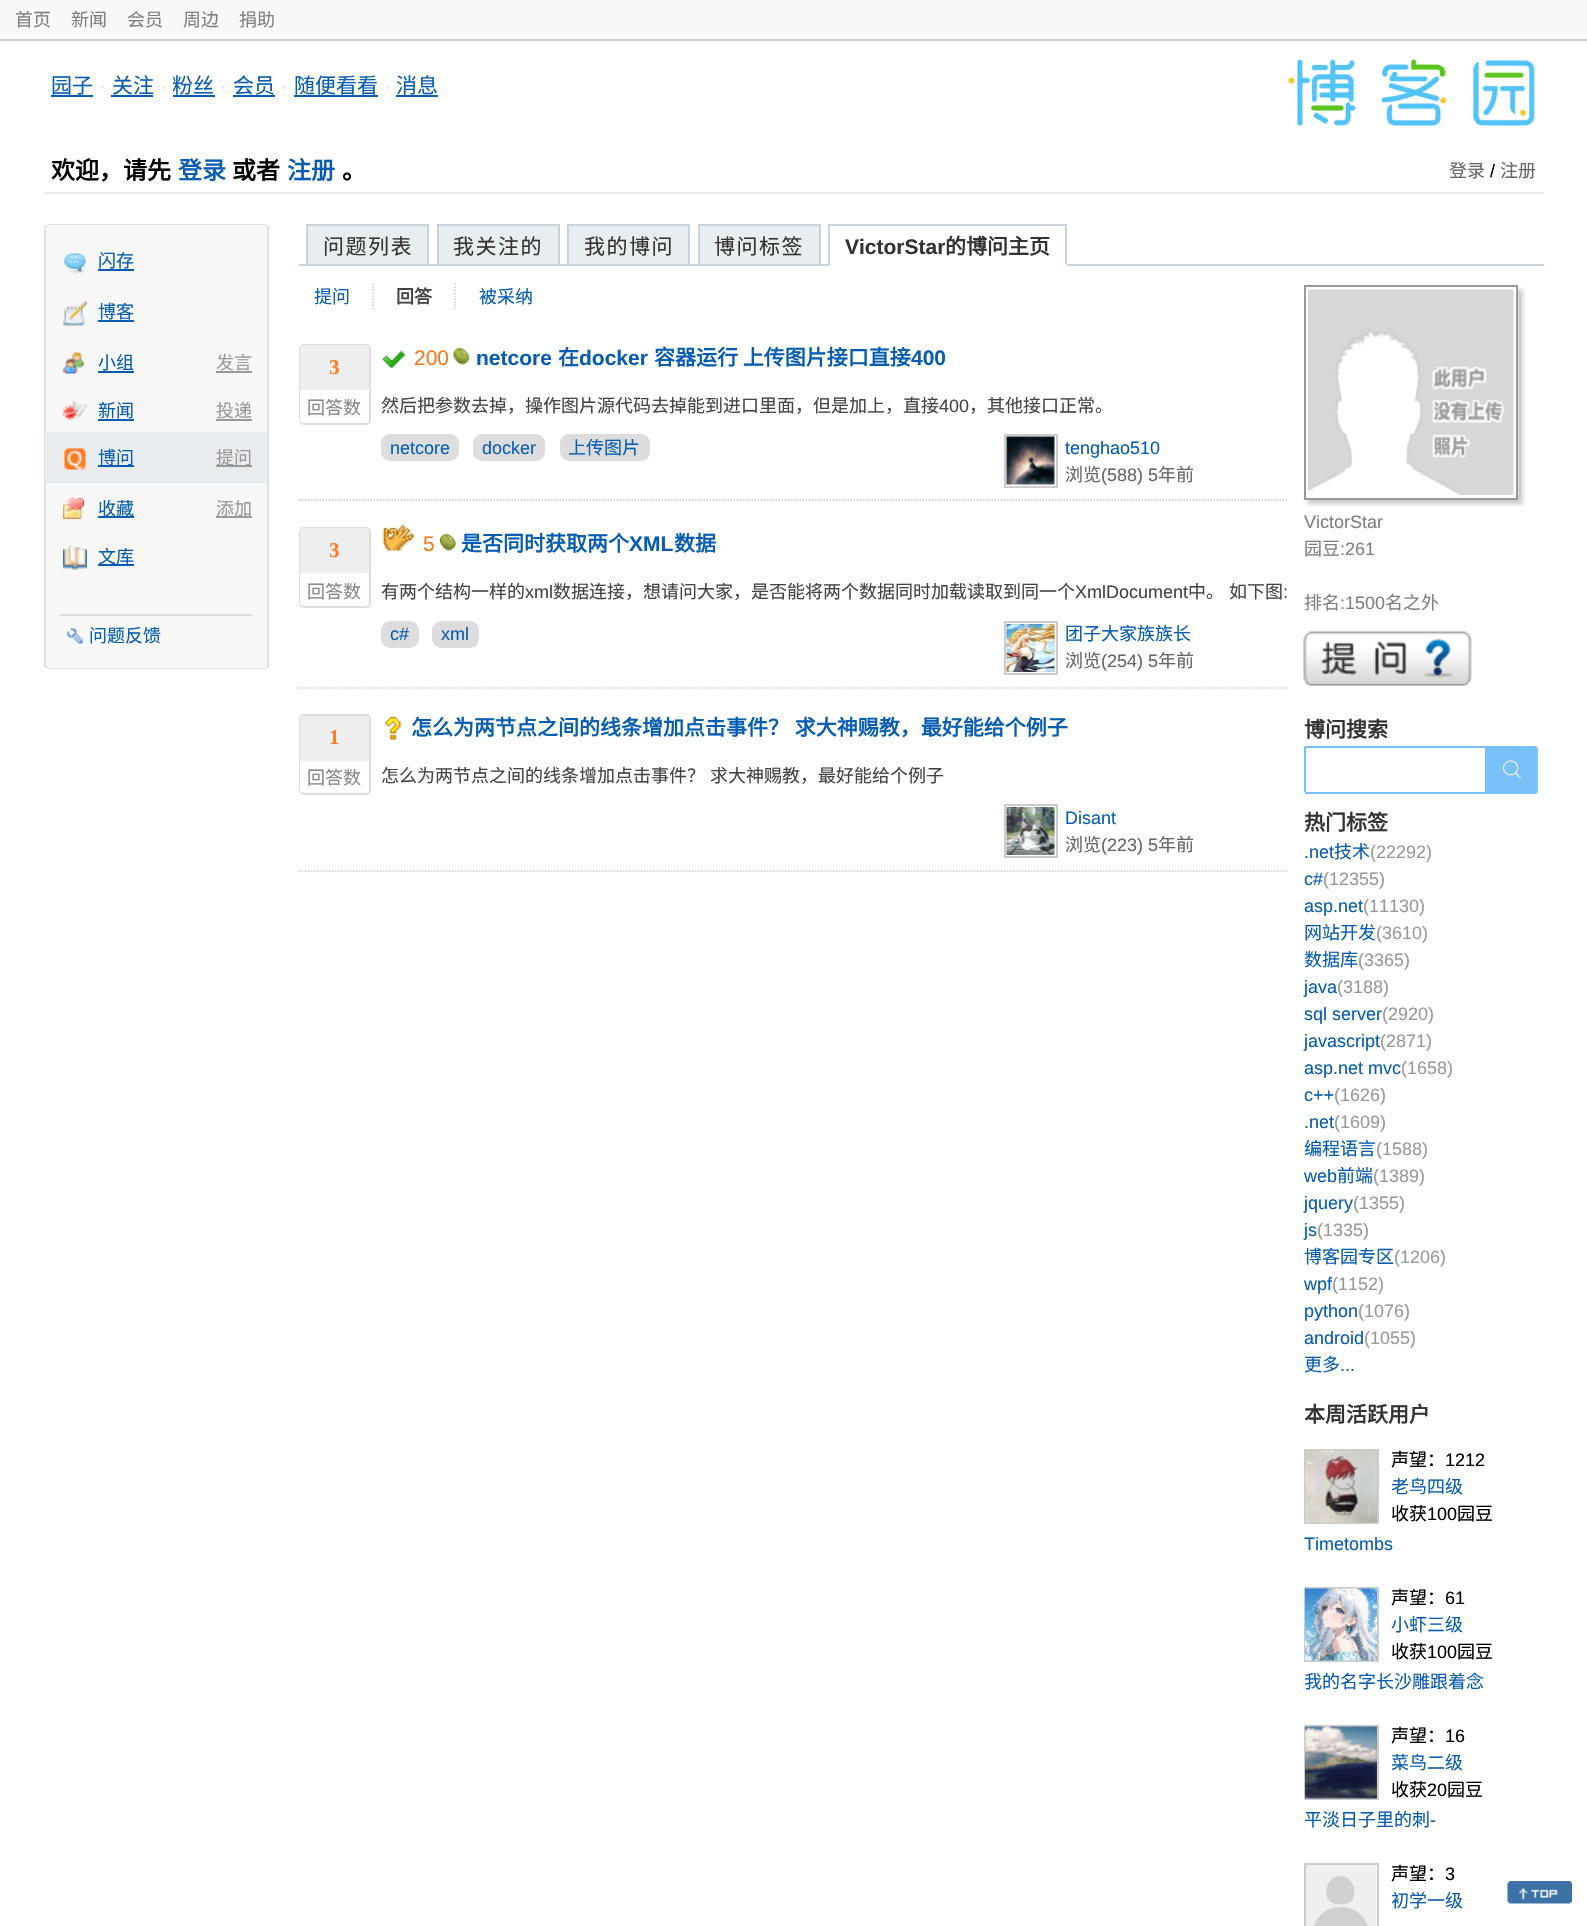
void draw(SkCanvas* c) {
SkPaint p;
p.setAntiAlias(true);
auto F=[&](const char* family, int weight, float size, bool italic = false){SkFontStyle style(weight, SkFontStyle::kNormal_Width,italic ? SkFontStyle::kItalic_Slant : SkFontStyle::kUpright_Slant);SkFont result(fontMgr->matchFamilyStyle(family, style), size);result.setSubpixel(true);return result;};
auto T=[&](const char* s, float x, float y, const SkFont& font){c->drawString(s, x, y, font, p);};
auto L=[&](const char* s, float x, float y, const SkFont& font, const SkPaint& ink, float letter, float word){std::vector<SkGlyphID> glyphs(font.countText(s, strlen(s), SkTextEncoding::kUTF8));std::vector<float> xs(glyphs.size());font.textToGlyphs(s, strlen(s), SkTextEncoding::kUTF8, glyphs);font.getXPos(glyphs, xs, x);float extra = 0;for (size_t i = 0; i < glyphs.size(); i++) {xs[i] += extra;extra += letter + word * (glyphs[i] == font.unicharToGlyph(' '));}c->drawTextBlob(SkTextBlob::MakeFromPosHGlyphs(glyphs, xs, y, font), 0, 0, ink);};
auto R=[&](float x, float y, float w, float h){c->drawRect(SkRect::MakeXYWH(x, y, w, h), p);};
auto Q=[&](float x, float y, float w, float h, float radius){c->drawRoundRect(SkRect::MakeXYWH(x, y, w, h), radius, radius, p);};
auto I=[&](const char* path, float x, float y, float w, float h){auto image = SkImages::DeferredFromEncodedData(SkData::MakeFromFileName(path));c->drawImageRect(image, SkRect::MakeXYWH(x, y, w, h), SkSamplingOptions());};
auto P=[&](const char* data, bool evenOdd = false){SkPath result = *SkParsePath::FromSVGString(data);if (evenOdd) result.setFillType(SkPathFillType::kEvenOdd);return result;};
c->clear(0xffffffff);
p.setColor(0xff7ac0f8);
R(1304,747,2,45);
p.setColor(0xfff8f8f8);
R(0,0,1587,39);
p.setColor(0xffcccccc);
R(0,39,1587,2);
auto f1 = F("Noto Sans CJK SC",400,18);
p.setColor(0xff808080);
T("首页",15,26,f1);
T("新闻",71,26,f1);
T("会员",127,26,f1);
T("周边",183,26,f1);
T("捐助",239,26,f1);
p.setColor(0xffe8e8e8);
R(44,192,1500,2);
auto f2 = F("Noto Sans CJK SC",400,21);
p.setColor(0xff075db3);
T("园子",51,93,f2);
R(51,95,42,2);
auto f3 = F("Liberation Sans",400,21);
p.setColor(0xffdfdfdf);
T("·",99,93,f3);
p.setColor(0xff075db3);
T("关注",112,93,f2);
R(111,95,42,2);
p.setColor(0xffdfdfdf);
T("·",160,93,f3);
p.setColor(0xff075db3);
T("粉丝",172,93,f2);
R(173,95,42,2);
p.setColor(0xffdfdfdf);
T("·",220,93,f3);
p.setColor(0xff075db3);
T("会员",233,93,f2);
R(233,95,42,2);
p.setColor(0xffdfdfdf);
T("·",281,93,f3);
p.setColor(0xff075db3);
T("随便看看",294,93,f2);
R(294,95,84,2);
p.setColor(0xffdfdfdf);
T("·",384,93,f3);
p.setColor(0xff075db3);
T("消息",396,93,f2);
R(396,95,42,2);
I("1.png",1288,59,247,67);
auto f4 = F("Noto Sans CJK SC",700,24);
p.setColor(0xff000000);
T("欢迎，请先",51,179,f4);
p.setColor(0xff075db3);
T("登录",178,179,f4);
p.setColor(0xff000000);
T("或者",232,179,f4);
p.setColor(0xff075db3);
T("注册",287,179,f4);
p.setColor(0xff000000);
T("。",342,179,f4);
p.setColor(0xff666666);
T("登录",1449,177,f1);
auto f5 = F("Liberation Sans",400,18);
p.setColor(0xff000000);
T("/",1490,177,f5);
p.setColor(0xff666666);
T("注册",1500,177,f1);
p.setColor(0xffdfe1e1);
R(47,224,219,1);
p.setColor(0xfff7f7f7);
R(45,225,222,2);
p.setColor(0xffdfe1e1);
R(266,225,2,2);
R(45,225,2,2);
p.setColor(0xfff7f7f7);
R(44,227,225,1);
p.setColor(0xffdbdee2);
R(267,227,2,1);
p.setColor(0xffdfe1e1);
R(44,227,2,438);
p.setColor(0xfff7f7f7);
R(46,228,221,437);
p.setColor(0xffdfe1e1);
R(267,228,2,437);
I("2.png",64,253,22,21);
p.setColor(0xff075db3);
T("闪存",98,267,f1);
R(98,269,36,2);
I("3.png",63,301,24,25);
T("博客",98,318,f1);
R(98,320,36,2);
I("4.png",63,352,21,22);
T("小组",98,369,f1);
R(98,371,36,2);
p.setColor(0xff999999);
T("发言",216,369,f1);
R(216,371,36,2);
I("5.png",63,401,24,19);
p.setColor(0xff075db3);
T("新闻",98,417,f1);
R(98,419,36,2);
p.setColor(0xff999999);
T("投递",216,417,f1);
R(216,419,36,2);
p.setColor(0xffe9ecef);
R(45,432,222,51);
I("6.png",64,448,22,22);
p.setColor(0xff075db3);
R(98,465,36,2);
T("博问",98,464,f1);
p.setColor(0xff999999);
R(216,465,36,2);
T("提问",216,464,f1);
I("7.png",63,498,21,21);
p.setColor(0xff075db3);
R(98,516,36,2);
T("收藏",98,515,f1);
p.setColor(0xff999999);
R(216,516,36,2);
T("添加",216,515,f1);
I("8.png",63,546,24,24);
p.setColor(0xff075db3);
R(98,564,36,2);
T("文库",98,563,f1);
p.setColor(0xffdddddd);
R(60,614,192,2);
I("9.png",67,628,16,16);
p.setColor(0xff075db3);
T("问题反馈",89,642,f1);
p.setColor(0xfff7f7f7);
R(44,665,225,1);
p.setColor(0xffdbdee2);
R(267,665,2,2);
p.setColor(0xffdfe1e1);
R(44,665,2,2);
p.setColor(0xfff7f7f7);
R(45,666,222,2);
p.setColor(0xffdfe1e1);
R(266,666,2,2);
R(45,666,2,2);
R(47,668,219,1);
p.setColor(0xffc8d3de);
R(299,264,1245,2);
p.setColor(0xffe8edf0);
c->drawRect(SkRect::MakeXYWH(307,225,121,40),p);
p.setStroke(true);
p.setStrokeWidth(2);
p.setColor(0xffc8d3de);
c->drawRect(SkRect::MakeXYWH(307,225,121,40),p);
p.setStroke(false);
p.setColor(0xff333333);
L("问题列表",323,254,f2,p,1.5,0);
p.setColor(0xffe8edf0);
c->drawRect(SkRect::MakeXYWH(438,225,121,40),p);
p.setStroke(true);
p.setColor(0xffc8d3de);
c->drawRect(SkRect::MakeXYWH(438,225,121,40),p);
p.setStroke(false);
p.setColor(0xff333333);
L("我关注的",453,254,f2,p,1.5,0);
p.setColor(0xffe8edf0);
c->drawRect(SkRect::MakeXYWH(568,225,121,40),p);
p.setStroke(true);
p.setColor(0xffc8d3de);
c->drawRect(SkRect::MakeXYWH(568,225,121,40),p);
p.setStroke(false);
p.setColor(0xff333333);
L("我的博问",584,254,f2,p,1.5,0);
p.setColor(0xffe8edf0);
c->drawRect(SkRect::MakeXYWH(699,225,121,40),p);
p.setStroke(true);
p.setColor(0xffc8d3de);
c->drawRect(SkRect::MakeXYWH(699,225,121,40),p);
p.setStroke(false);
p.setColor(0xff333333);
L("博问标签",714,254,f2,p,1.5,0);
p.setColor(0xffc8d3de);
R(828,224,239,2);
R(1065,224,2,42);
p.setColor(0xffffffff);
R(828,264,239,2);
p.setColor(0xffc8d3de);
R(828,224,2,42);
auto f6 = F("Liberation Sans",700,21);
p.setColor(0xff333333);
T("VictorStar",845,254,f6);
auto f7 = F("Noto Sans CJK SC",700,21);
T("的博问主页",945,254,f7);
p.setColor(0xff075db3);
T("提问",314,303,f1);
p.setStroke(true);
p.setStrokeWidth(1.5);
p.setColor(0xffcccccc);
p.setPathEffect(SkDashPathEffect::Make({{1.5f,1.5f}}, 0));
c->drawPath(P("M373 283.5v27"),p);
p.setPathEffect(nullptr);
auto f8 = F("Noto Sans CJK SC",700,18);
p.setStroke(false);
p.setColor(0xff444444);
T("回答",396,303,f8);
p.setStroke(true);
p.setColor(0xffcccccc);
p.setPathEffect(SkDashPathEffect::Make({{1.5f,1.5f}}, 0));
c->drawPath(P("M455 283.5v27"),p);
p.setPathEffect(nullptr);
p.setStroke(false);
p.setColor(0xff075db3);
T("被采纳",479,303,f1);
p.setStroke(true);
p.setColor(0xffcccccc);
p.setPathEffect(SkDashPathEffect::Make({{1.5f,1.5f}}, 0));
c->drawPath(P("M298.5 500h990"),p);
p.setPathEffect(nullptr);
p.setStrokeWidth(2);
p.setColor(0xffdddddd);
c->drawRoundRect(SkRect::MakeXYWH(300,345,70,79),4,4,p);
p.setStroke(false);
p.setColor(0xffeeeeee);
Q(300,345,69,45,3);
auto f9 = F("Liberation Serif",700,21);
p.setColor(0xffff7b24);
T("3",329,374,f9);
p.setColor(0xffffffff);
R(300,390,69,32);
p.setColor(0xff888888);
T("回答数",307,414,f1);
I("10.png",382,350,23,18);
p.setColor(0xfff47a20);
T("200",414,365,f3);
I("11.png",452,347,18,18);
p.setColor(0xff075db3);
T("netcore",476,365,f6);
T("在",558,365,f7);
T("docker",579,365,f6);
T("容器运行 上传图片接口直接",654,365,f7);
T("400",911,365,f6);
p.setColor(0xff444444);
T("然后把参数去掉，操作图片源代码去掉能到进口里面，但是加上，直接",381,412,f1);
T("400",939,412,f5);
T("，其他接口正常。",969,412,f1);
p.setColor(0xffdddddd);
Q(381,434,78,27,9);
p.setColor(0xff075db3);
T("netcore",390,454,f5);
p.setColor(0xffdddddd);
Q(473,434,72,27,9);
p.setColor(0xff075db3);
T("docker",482,454,f5);
p.setColor(0xffdddddd);
Q(560,434,90,27,9);
p.setColor(0xff075db3);
T("上传图片",568,454,f1);
p.setStroke(true);
p.setColor(0xffcccccc);
c->drawRect(SkRect::MakeXYWH(1005,435,52,52),p);
I("12.png",1006,436,49,49);
p.setStroke(false);
p.setColor(0xff075db3);
T("tenghao510",1065,454,f5);
p.setColor(0xff666666);
T("浏览",1065,481,f1);
T("(588) 5",1101,481,f5);
T("年前",1158,481,f1);
p.setStroke(true);
p.setStrokeWidth(1.5);
p.setColor(0xffcccccc);
p.setPathEffect(SkDashPathEffect::Make({{1.5f,1.5f}}, 0));
c->drawPath(P("M298.5 688h990"),p);
p.setPathEffect(nullptr);
p.setStrokeWidth(2);
p.setColor(0xffdddddd);
c->drawRoundRect(SkRect::MakeXYWH(300,528,70,79),4,4,p);
p.setStroke(false);
p.setColor(0xffeeeeee);
Q(300,528,69,45,3);
p.setColor(0xffff7b24);
T("3",329,557,f9);
p.setColor(0xffffffff);
R(300,573,69,32);
p.setColor(0xff888888);
T("回答数",307,598,f1);
I("13.png",382,524,32,27);
p.setColor(0xfff47a20);
T("5",423,551,f3);
I("14.png",439,533,17,18);
p.setColor(0xff075db3);
T("是否同时获取两个",461,551,f7);
T("XML",629,551,f6);
T("数据",674,551,f7);
p.setColor(0xff444444);
T("有两个结构一样的",381,598,f1);
T("xml",525,598,f5);
T("数据连接，想请问大家，是否能将两个数据同时加载读取到同一个",553,598,f1);
T("XmlDocument",1075,598,f5);
L("中。 如下图",1188,598,f1,p,0,1);
T(":",1283,598,f5);
p.setColor(0xffdddddd);
Q(381,621,38,27,9);
p.setColor(0xff075db3);
T("c#",390,640,f5);
p.setColor(0xffdddddd);
Q(432,621,47,27,9);
p.setColor(0xff075db3);
T("xml",441,640,f5);
p.setStroke(true);
p.setColor(0xffcccccc);
c->drawRect(SkRect::MakeXYWH(1005,622,52,52),p);
I("15.png",1006,624,49,48);
p.setStroke(false);
p.setColor(0xff075db3);
T("团子大家族族长",1065,640,f1);
p.setColor(0xff666666);
T("浏览",1065,667,f1);
T("(254) 5",1101,667,f5);
T("年前",1158,667,f1);
p.setStroke(true);
p.setStrokeWidth(1.5);
p.setColor(0xffcccccc);
p.setPathEffect(SkDashPathEffect::Make({{1.5f,1.5f}}, 0));
c->drawPath(P("M298.5 871h990"),p);
p.setPathEffect(nullptr);
p.setStrokeWidth(2);
p.setColor(0xffdddddd);
c->drawRoundRect(SkRect::MakeXYWH(300,715,70,79),4,4,p);
p.setStroke(false);
p.setColor(0xffeeeeee);
Q(300,716,69,45,3);
p.setColor(0xffff7b24);
T("1",329,744,f9);
p.setColor(0xffffffff);
R(300,761,69,31);
p.setColor(0xff888888);
T("回答数",307,784,f1);
I("16.png",385,717,16,23);
p.setColor(0xff075db3);
L("怎么为两节点之间的线条增加点击事件？ 求大神赐教，最好能给个例子",411,735,f7,p,0,1);
p.setColor(0xff444444);
L("怎么为两节点之间的线条增加点击事件？ 求大神赐教，最好能给个例子",381,782,f1,p,0,1);
p.setStroke(true);
p.setColor(0xffcccccc);
c->drawRect(SkRect::MakeXYWH(1005,805,52,52),p);
I("17.png",1006,807,49,48);
p.setStroke(false);
p.setColor(0xff075db3);
T("Disant",1065,824,f5);
p.setColor(0xff666666);
T("浏览",1065,851,f1);
T("(223) 5",1101,851,f5);
T("年前",1158,851,f1);
I("18.png",1303,285,223,222);
I("19.png",1518,285,8,9);
I("20.png",1303,499,10,8);
p.setStroke(true);
p.setColor(0xff999999);
c->drawRect(SkRect::MakeXYWH(1305,286,212,213),p);
I("21.png",1308,289,206,206);
p.setStroke(false);
p.setColor(0xff808080);
T("VictorStar",1304,528,f5);
T("园豆",1304,555,f1);
T(":261",1340,555,f5);
T("排名",1304,609,f1);
T(":1500",1340,609,f5);
T("名之外",1385,609,f1);
I("22.png",1303,631,169,55);
p.setColor(0xff333333);
T("博问搜索",1304,737,f7);
p.setColor(0xff7ac0f8);
R(1305,746,180,2);
p.setColor(0xff45a7f5);
R(1305,747,1,1);
p.setColor(0xff7ac0f8);
R(1305,792,180,2);
c->drawPath(P("M1485 746h50c1.5 0 3 1.5 3 3v42c0 1.5-1.5 3-3 3h-50z"),p);
I("23.png",1503,760,18,19);
p.setColor(0x1aecf6ff);
R(1536,747,2,45);
p.setColor(0xff333333);
T("热门标签",1304,830,f7);
p.setColor(0xff075db3);
T(".net",1304,858,f5);
T("技术",1334,858,f1);
p.setColor(0xff999999);
T("(22292)",1370,858,f5);
p.setColor(0xff075db3);
T("c#",1304,885,f5);
p.setColor(0xff999999);
T("(12355)",1323,885,f5);
p.setColor(0xff075db3);
T("asp.net",1304,912,f5);
p.setColor(0xff999999);
T("(11130)",1363,912,f5);
p.setColor(0xff075db3);
T("网站开发",1304,939,f1);
p.setColor(0xff999999);
T("(3610)",1376,939,f5);
p.setColor(0xff075db3);
T("数据库",1304,966,f1);
p.setColor(0xff999999);
T("(3365)",1358,966,f5);
p.setColor(0xff075db3);
T("java",1304,993,f5);
p.setColor(0xff999999);
T("(3188)",1337,993,f5);
p.setColor(0xff075db3);
T("sql server",1304,1020,f5);
p.setColor(0xff999999);
T("(2920)",1382,1020,f5);
p.setColor(0xff075db3);
T("javascript",1304,1047,f5);
p.setColor(0xff999999);
T("(2871)",1380,1047,f5);
p.setColor(0xff075db3);
T("asp.net mvc",1304,1074,f5);
p.setColor(0xff999999);
T("(1658)",1401,1074,f5);
p.setColor(0xff075db3);
T("c++",1304,1101,f5);
p.setColor(0xff999999);
T("(1626)",1334,1101,f5);
p.setColor(0xff075db3);
T(".net",1304,1128,f5);
p.setColor(0xff999999);
T("(1609)",1334,1128,f5);
p.setColor(0xff075db3);
T("编程语言",1304,1155,f1);
p.setColor(0xff999999);
T("(1588)",1376,1155,f5);
p.setColor(0xff075db3);
T("web",1304,1182,f5);
T("前端",1337,1182,f1);
p.setColor(0xff999999);
T("(1389)",1373,1182,f5);
p.setColor(0xff075db3);
T("jquery",1304,1209,f5);
p.setColor(0xff999999);
T("(1355)",1353,1209,f5);
p.setColor(0xff075db3);
T("js",1304,1236,f5);
p.setColor(0xff999999);
T("(1335)",1317,1236,f5);
p.setColor(0xff075db3);
T("博客园专区",1304,1263,f1);
p.setColor(0xff999999);
T("(1206)",1394,1263,f5);
p.setColor(0xff075db3);
T("wpf",1304,1290,f5);
p.setColor(0xff999999);
T("(1152)",1332,1290,f5);
p.setColor(0xff075db3);
T("python",1304,1317,f5);
p.setColor(0xff999999);
T("(1076)",1358,1317,f5);
p.setColor(0xff075db3);
T("android",1304,1344,f5);
p.setColor(0xff999999);
T("(1055)",1364,1344,f5);
p.setColor(0xff075db3);
T("更多",1304,1371,f1);
T("...",1340,1371,f5);
p.setColor(0xff333333);
T("本周活跃用户",1304,1422,f7);
p.setStroke(true);
p.setColor(0xffcccccc);
c->drawRect(SkRect::MakeXYWH(1305,1450,73,73),p);
I("24.png",1305,1450,72,73);
p.setStroke(false);
p.setColor(0xff000000);
T("声望：",1391,1466,f1);
T("1212",1445,1466,f5);
p.setColor(0xff075db3);
T("老鸟四级",1391,1493,f1);
p.setColor(0xff000000);
T("收获",1391,1520,f1);
T("100",1427,1520,f5);
T("园豆",1457,1520,f1);
p.setColor(0xff075db3);
T("Timetombs",1304,1550,f5);
p.setStroke(true);
p.setColor(0xffcccccc);
c->drawRect(SkRect::MakeXYWH(1305,1588,73,73),p);
I("25.png",1305,1588,72,73);
p.setStroke(false);
p.setColor(0xff000000);
T("声望：",1391,1604,f1);
T("61",1445,1604,f5);
p.setColor(0xff075db3);
T("小虾三级",1391,1631,f1);
p.setColor(0xff000000);
T("收获",1391,1658,f1);
T("100",1427,1658,f5);
T("园豆",1457,1658,f1);
p.setColor(0xff075db3);
T("我的名字长沙雕跟着念",1304,1688,f1);
p.setStroke(true);
p.setColor(0xffcccccc);
c->drawRect(SkRect::MakeXYWH(1305,1726,73,73),p);
I("26.png",1305,1726,72,73);
p.setStroke(false);
p.setColor(0xff000000);
T("声望：",1391,1742,f1);
T("16",1445,1742,f5);
p.setColor(0xff075db3);
T("菜鸟二级",1391,1769,f1);
p.setColor(0xff000000);
T("收获",1391,1796,f1);
T("20",1427,1796,f5);
T("园豆",1447,1796,f1);
p.setColor(0xff075db3);
T("平淡日子里的刺",1304,1826,f1);
T("-",1430,1826,f5);
p.setStroke(true);
p.setColor(0xffcccccc);
c->drawRect(SkRect::MakeXYWH(1305,1864,73,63),p);
I("27.png",1305,1865,72,61);
p.setStroke(false);
p.setColor(0xff000000);
T("声望：",1391,1880,f1);
T("3",1445,1880,f5);
p.setColor(0xff075db3);
T("初学一级",1391,1907,f1);
I("28.png",1507,1881,65,23);
}
